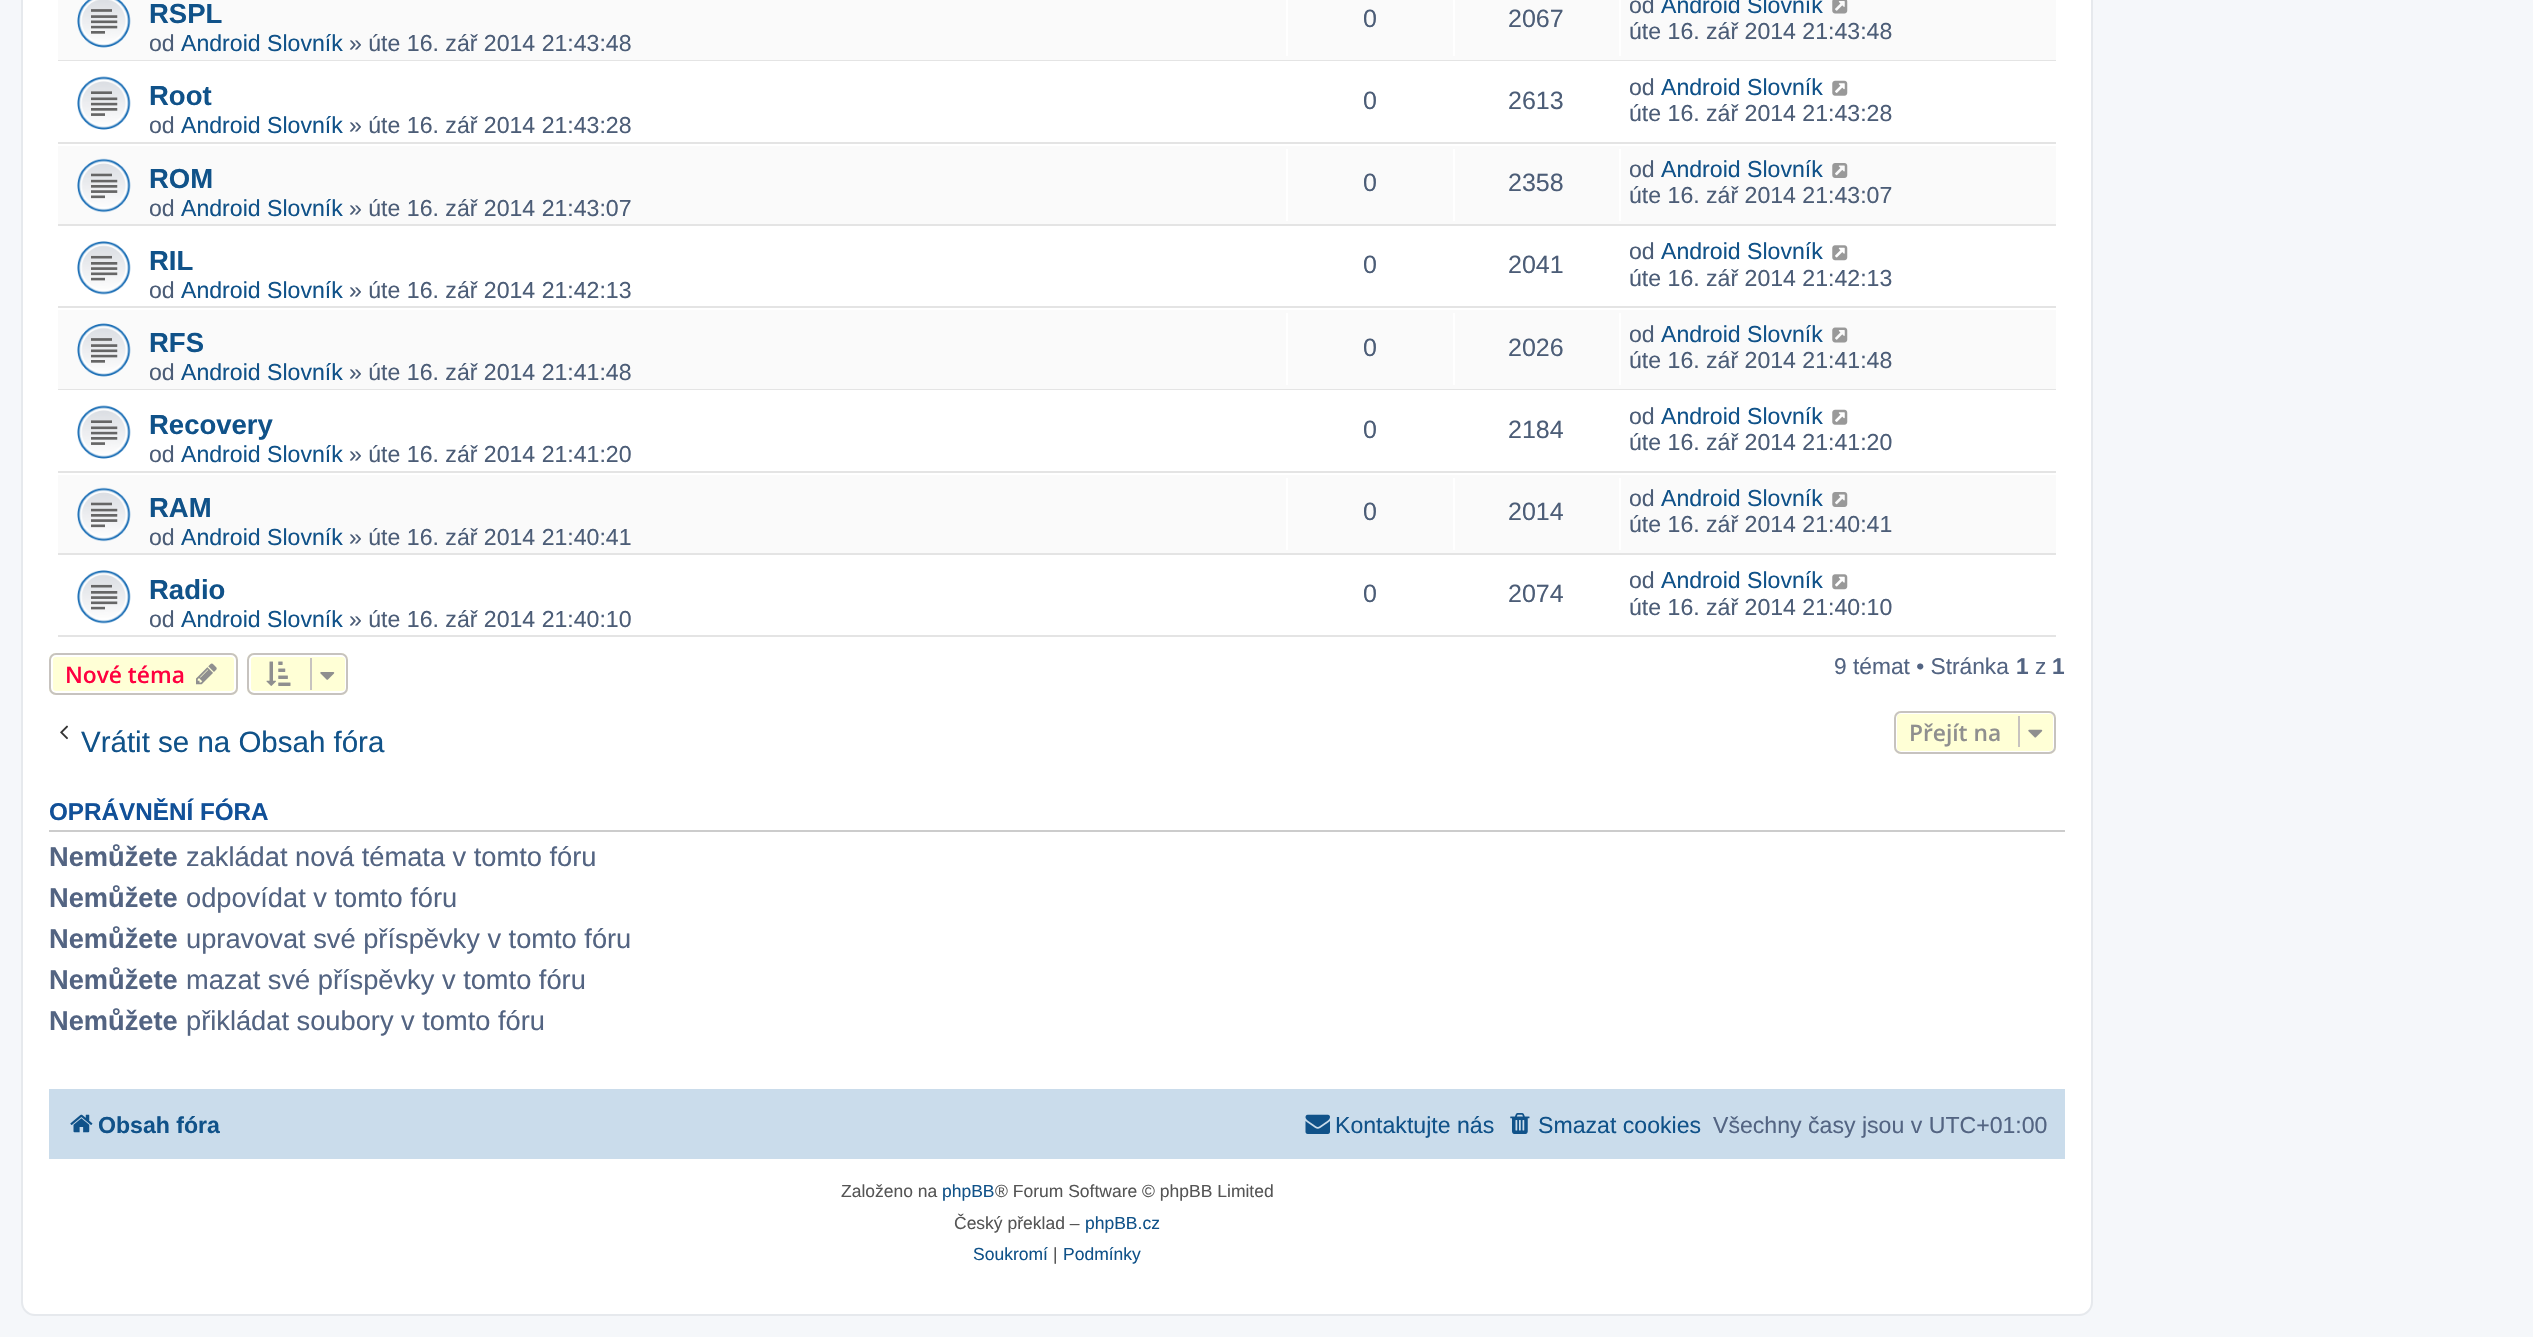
void draw(SkCanvas* c) {
SkPaint p;
p.setAntiAlias(true);
auto F=[&](const char* family, int weight, float size, bool italic = false){SkFontStyle style(weight, SkFontStyle::kNormal_Width,italic ? SkFontStyle::kItalic_Slant : SkFontStyle::kUpright_Slant);SkFont result(fontMgr->matchFamilyStyle(family, style), size);result.setSubpixel(true);return result;};
auto T=[&](const char* s, float x, float y, const SkFont& font){c->drawString(s, x, y, font, p);};
auto R=[&](float x, float y, float w, float h){c->drawRect(SkRect::MakeXYWH(x, y, w, h), p);};
auto Q=[&](float x, float y, float w, float h, float radius){c->drawRoundRect(SkRect::MakeXYWH(x, y, w, h), radius, radius, p);};
auto I=[&](const char* path, float x, float y, float w, float h){auto image = SkImages::DeferredFromEncodedData(SkData::MakeFromFileName(path));c->drawImageRect(image, SkRect::MakeXYWH(x, y, w, h), SkSamplingOptions());};
c->clear(0xfff5f7fa);
p.setColor(0xffffffff);
c->drawRoundRect(SkRect::MakeXYWH(22,-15,2070,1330),13,13,p);
p.setStroke(true);
p.setStrokeWidth(2);
p.setColor(0xffe6e9ed);
c->drawRoundRect(SkRect::MakeXYWH(22,-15,2070,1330),13,13,p);
p.setStroke(false);
p.setColor(0xfffafafa);
R(58,0,1998,60);
p.setColor(0xffe4e4e4);
R(58,60,1998,1);
I("1.png",77,0,54,48);
auto f1 = F("Liberation Sans",700,27.5);
p.setColor(0xff105289);
T("RSPL",149,23,f1);
auto f2 = F("Liberation Sans",400,23.1);
p.setColor(0xff4c5d77);
T("od",149,51,f2);
p.setColor(0xff105289);
T("Android Slovník",181,51,f2);
p.setColor(0xff4c5d77);
T("» úte 16. zář 2014 21:43:48",349,51,f2);
p.setColor(0xffffffff);
R(1286,0,2,56);
auto f3 = F("Liberation Sans",400,25);
p.setColor(0xff4c5d77);
T("0",1363,27,f3);
p.setColor(0xffffffff);
R(1453,0,2,56);
p.setColor(0xff4c5d77);
T("2067",1508,27,f3);
p.setColor(0xffffffff);
R(1619,0,2,56);
p.setColor(0xff4c5d77);
T("od",1629,13,f2);
p.setColor(0xff105289);
T("Android Slovník",1661,13,f2);
I("2.png",1832,0,16,14);
p.setColor(0xff4c5d77);
T("úte 16. zář 2014 21:43:48",1629,39,f2);
p.setColor(0xffe4e4e4);
R(58,142,1998,2);
I("3.png",77,76,54,54);
p.setColor(0xff105289);
T("Root",149,105,f1);
p.setColor(0xff4c5d77);
T("od",149,133,f2);
p.setColor(0xff105289);
T("Android Slovník",181,133,f2);
p.setColor(0xff4c5d77);
T("» úte 16. zář 2014 21:43:28",349,133,f2);
T("0",1363,109,f3);
T("2613",1508,109,f3);
T("od",1629,95,f2);
p.setColor(0xff105289);
T("Android Slovník",1661,95,f2);
I("4.png",1832,80,16,16);
p.setColor(0xff4c5d77);
T("úte 16. zář 2014 21:43:28",1629,121,f2);
p.setColor(0xfffafafa);
R(58,146,1998,78);
p.setColor(0xffe4e4e4);
R(58,224,1998,2);
I("5.png",77,158,54,55);
p.setColor(0xff105289);
T("ROM",149,188,f1);
p.setColor(0xff4c5d77);
T("od",149,216,f2);
p.setColor(0xff105289);
T("Android Slovník",181,216,f2);
p.setColor(0xff4c5d77);
T("» úte 16. zář 2014 21:43:07",349,216,f2);
p.setColor(0xffffffff);
R(1286,149,2,72);
p.setColor(0xff4c5d77);
T("0",1363,191,f3);
p.setColor(0xffffffff);
R(1453,149,2,72);
p.setColor(0xff4c5d77);
T("2358",1508,191,f3);
p.setColor(0xffffffff);
R(1619,149,2,72);
p.setColor(0xff4c5d77);
T("od",1629,177,f2);
p.setColor(0xff105289);
T("Android Slovník",1661,177,f2);
I("6.png",1832,163,16,15);
p.setColor(0xff4c5d77);
T("úte 16. zář 2014 21:43:07",1629,203,f2);
p.setColor(0xffe4e4e4);
R(58,306,1998,2);
I("7.png",77,241,54,54);
p.setColor(0xff105289);
T("RIL",149,270,f1);
p.setColor(0xff4c5d77);
T("od",149,298,f2);
p.setColor(0xff105289);
T("Android Slovník",181,298,f2);
p.setColor(0xff4c5d77);
T("» úte 16. zář 2014 21:42:13",349,298,f2);
T("0",1363,273,f3);
T("2041",1508,273,f3);
T("od",1629,259,f2);
p.setColor(0xff105289);
T("Android Slovník",1661,259,f2);
I("8.png",1832,245,16,16);
p.setColor(0xff4c5d77);
T("úte 16. zář 2014 21:42:13",1629,286,f2);
p.setColor(0xfffafafa);
R(58,310,1998,79);
p.setColor(0xffe4e4e4);
R(58,389,1998,1);
I("9.png",77,323,54,54);
p.setColor(0xff105289);
T("RFS",149,352,f1);
p.setColor(0xff4c5d77);
T("od",149,380,f2);
p.setColor(0xff105289);
T("Android Slovník",181,380,f2);
p.setColor(0xff4c5d77);
T("» úte 16. zář 2014 21:41:48",349,380,f2);
p.setColor(0xffffffff);
R(1286,313,2,72);
p.setColor(0xff4c5d77);
T("0",1363,356,f3);
p.setColor(0xffffffff);
R(1453,313,2,72);
p.setColor(0xff4c5d77);
T("2026",1508,356,f3);
p.setColor(0xffffffff);
R(1619,313,2,72);
p.setColor(0xff4c5d77);
T("od",1629,342,f2);
p.setColor(0xff105289);
T("Android Slovník",1661,342,f2);
I("10.png",1832,327,16,16);
p.setColor(0xff4c5d77);
T("úte 16. zář 2014 21:41:48",1629,368,f2);
p.setColor(0xffe4e4e4);
R(58,471,1998,2);
I("3.png",77,405,54,54);
p.setColor(0xff105289);
T("Recovery",149,434,f1);
p.setColor(0xff4c5d77);
T("od",149,462,f2);
p.setColor(0xff105289);
T("Android Slovník",181,462,f2);
p.setColor(0xff4c5d77);
T("» úte 16. zář 2014 21:41:20",349,462,f2);
T("0",1363,438,f3);
T("2184",1508,438,f3);
T("od",1629,424,f2);
p.setColor(0xff105289);
T("Android Slovník",1661,424,f2);
I("4.png",1832,409,16,16);
p.setColor(0xff4c5d77);
T("úte 16. zář 2014 21:41:20",1629,450,f2);
p.setColor(0xfffafafa);
R(58,475,1998,78);
p.setColor(0xffe4e4e4);
R(58,553,1998,2);
I("5.png",77,487,54,55);
p.setColor(0xff105289);
T("RAM",149,517,f1);
p.setColor(0xff4c5d77);
T("od",149,545,f2);
p.setColor(0xff105289);
T("Android Slovník",181,545,f2);
p.setColor(0xff4c5d77);
T("» úte 16. zář 2014 21:40:41",349,545,f2);
p.setColor(0xffffffff);
R(1286,478,2,72);
p.setColor(0xff4c5d77);
T("0",1363,520,f3);
p.setColor(0xffffffff);
R(1453,478,2,72);
p.setColor(0xff4c5d77);
T("2014",1508,520,f3);
p.setColor(0xffffffff);
R(1619,478,2,72);
p.setColor(0xff4c5d77);
T("od",1629,506,f2);
p.setColor(0xff105289);
T("Android Slovník",1661,506,f2);
I("11.png",1832,492,16,15);
p.setColor(0xff4c5d77);
T("úte 16. zář 2014 21:40:41",1629,532,f2);
p.setColor(0xffe4e4e4);
R(58,635,1998,2);
I("7.png",77,570,54,54);
p.setColor(0xff105289);
T("Radio",149,599,f1);
p.setColor(0xff4c5d77);
T("od",149,627,f2);
p.setColor(0xff105289);
T("Android Slovník",181,627,f2);
p.setColor(0xff4c5d77);
T("» úte 16. zář 2014 21:40:10",349,627,f2);
T("0",1363,602,f3);
T("2074",1508,602,f3);
T("od",1629,588,f2);
p.setColor(0xff105289);
T("Android Slovník",1661,588,f2);
I("8.png",1832,574,16,16);
p.setColor(0xff4c5d77);
T("úte 16. zář 2014 21:40:10",1629,615,f2);
p.setColor(0xffffffd6);
Q(49,653,189,42,7);
p.setStroke(true);
p.setColor(0xffffffff);
c->drawRoundRect(SkRect::MakeXYWH(52,656,183,36),4,4,p);
p.setColor(0xffc7c3bf);
c->drawRoundRect(SkRect::MakeXYWH(50,654,187,40),6,6,p);
auto f4 = F("Open Sans",600,22.75);
p.setStroke(false);
p.setColor(0xffff003f);
T("Nové téma",65,683,f4);
I("12.png",196,663,21,22);
p.setColor(0xffffffd6);
Q(247,653,101,42,7);
p.setStroke(true);
p.setColor(0xffffffff);
c->drawRoundRect(SkRect::MakeXYWH(250,656,96,36),4,4,p);
p.setColor(0xffc7c3bf);
c->drawRoundRect(SkRect::MakeXYWH(248,654,99,40),6,6,p);
I("13.png",266,661,25,25);
p.setStroke(false);
R(310,658,2,32);
I("14.png",320,672,15,8);
auto f5 = F("Liberation Sans",400,22.75);
p.setColor(0xff536482);
T("9 témat • Stránka",1834,674,f5);
auto f6 = F("Liberation Sans",700,22.75);
T("1",2016,674,f6);
T("z",2035,674,f5);
T("1",2052,674,f6);
I("15.png",60,725,8,15);
auto f7 = F("Liberation Sans",400,29.5);
p.setColor(0xff105289);
T("Vrátit se na Obsah fóra",81,752,f7);
p.setColor(0xffffffd6);
Q(1894,711,162,43,7);
p.setStroke(true);
p.setColor(0xffffffff);
c->drawRoundRect(SkRect::MakeXYWH(1896,713,158,39),4,4,p);
p.setColor(0xffc7c3bf);
c->drawRoundRect(SkRect::MakeXYWH(1895,712,160,41),6,6,p);
p.setStroke(false);
p.setColor(0xff8f8f8f);
T("Přejít na",1909,741,f4);
p.setColor(0xffc7c3bf);
R(2018,716,2,31);
I("16.png",2028,729,15,9);
p.setColor(0xffcccccc);
R(49,830,2016,2);
auto f8 = F("Liberation Sans",700,24.25);
p.setColor(0xff115098);
T("OPRÁVNĚNÍ FÓRA",49,820,f8);
auto f9 = F("Liberation Sans",700,27.25);
p.setColor(0xff536482);
T("Nemůžete",49,866,f9);
auto f10 = F("Liberation Sans",400,27.25);
T("zakládat nová témata v tomto fóru",186,866,f10);
T("Nemůžete",49,907,f9);
T("odpovídat v tomto fóru",186,907,f10);
T("Nemůžete",49,948,f9);
T("upravovat své příspěvky v tomto fóru",186,948,f10);
T("Nemůžete",49,989,f9);
T("mazat své příspěvky v tomto fóru",186,989,f10);
T("Nemůžete",49,1030,f9);
T("přikládat soubory v tomto fóru",186,1030,f10);
p.setColor(0xffcadceb);
R(49,1089,2016,70);
I("17.png",70,1114,23,19);
auto f11 = F("Liberation Sans",700,23.1);
p.setColor(0xff105289);
T("Obsah fóra",98,1133,f11);
I("18.png",1305,1114,25,20);
T("Kontaktujte nás",1335,1133,f2);
I("19.png",1510,1113,20,21);
T("Smazat cookies",1538,1133,f2);
p.setColor(0xff536482);
T("Všechny časy jsou v UTC+01:00",1713,1133,f2);
auto f12 = F("Liberation Sans",400,17.5);
p.setColor(0xff555555);
T("Založeno na",841,1197,f12);
p.setColor(0xff105289);
T("phpBB",942,1197,f12);
p.setColor(0xff555555);
T("® Forum Software © phpBB Limited",995,1197,f12);
T("Český překlad –",954,1229,f12);
p.setColor(0xff105289);
T("phpBB.cz",1085,1229,f12);
T("Soukromí",973,1260,f12);
p.setColor(0xff555555);
T("|",1053,1260,f12);
p.setColor(0xff105289);
T("Podmínky",1063,1260,f12);
}
